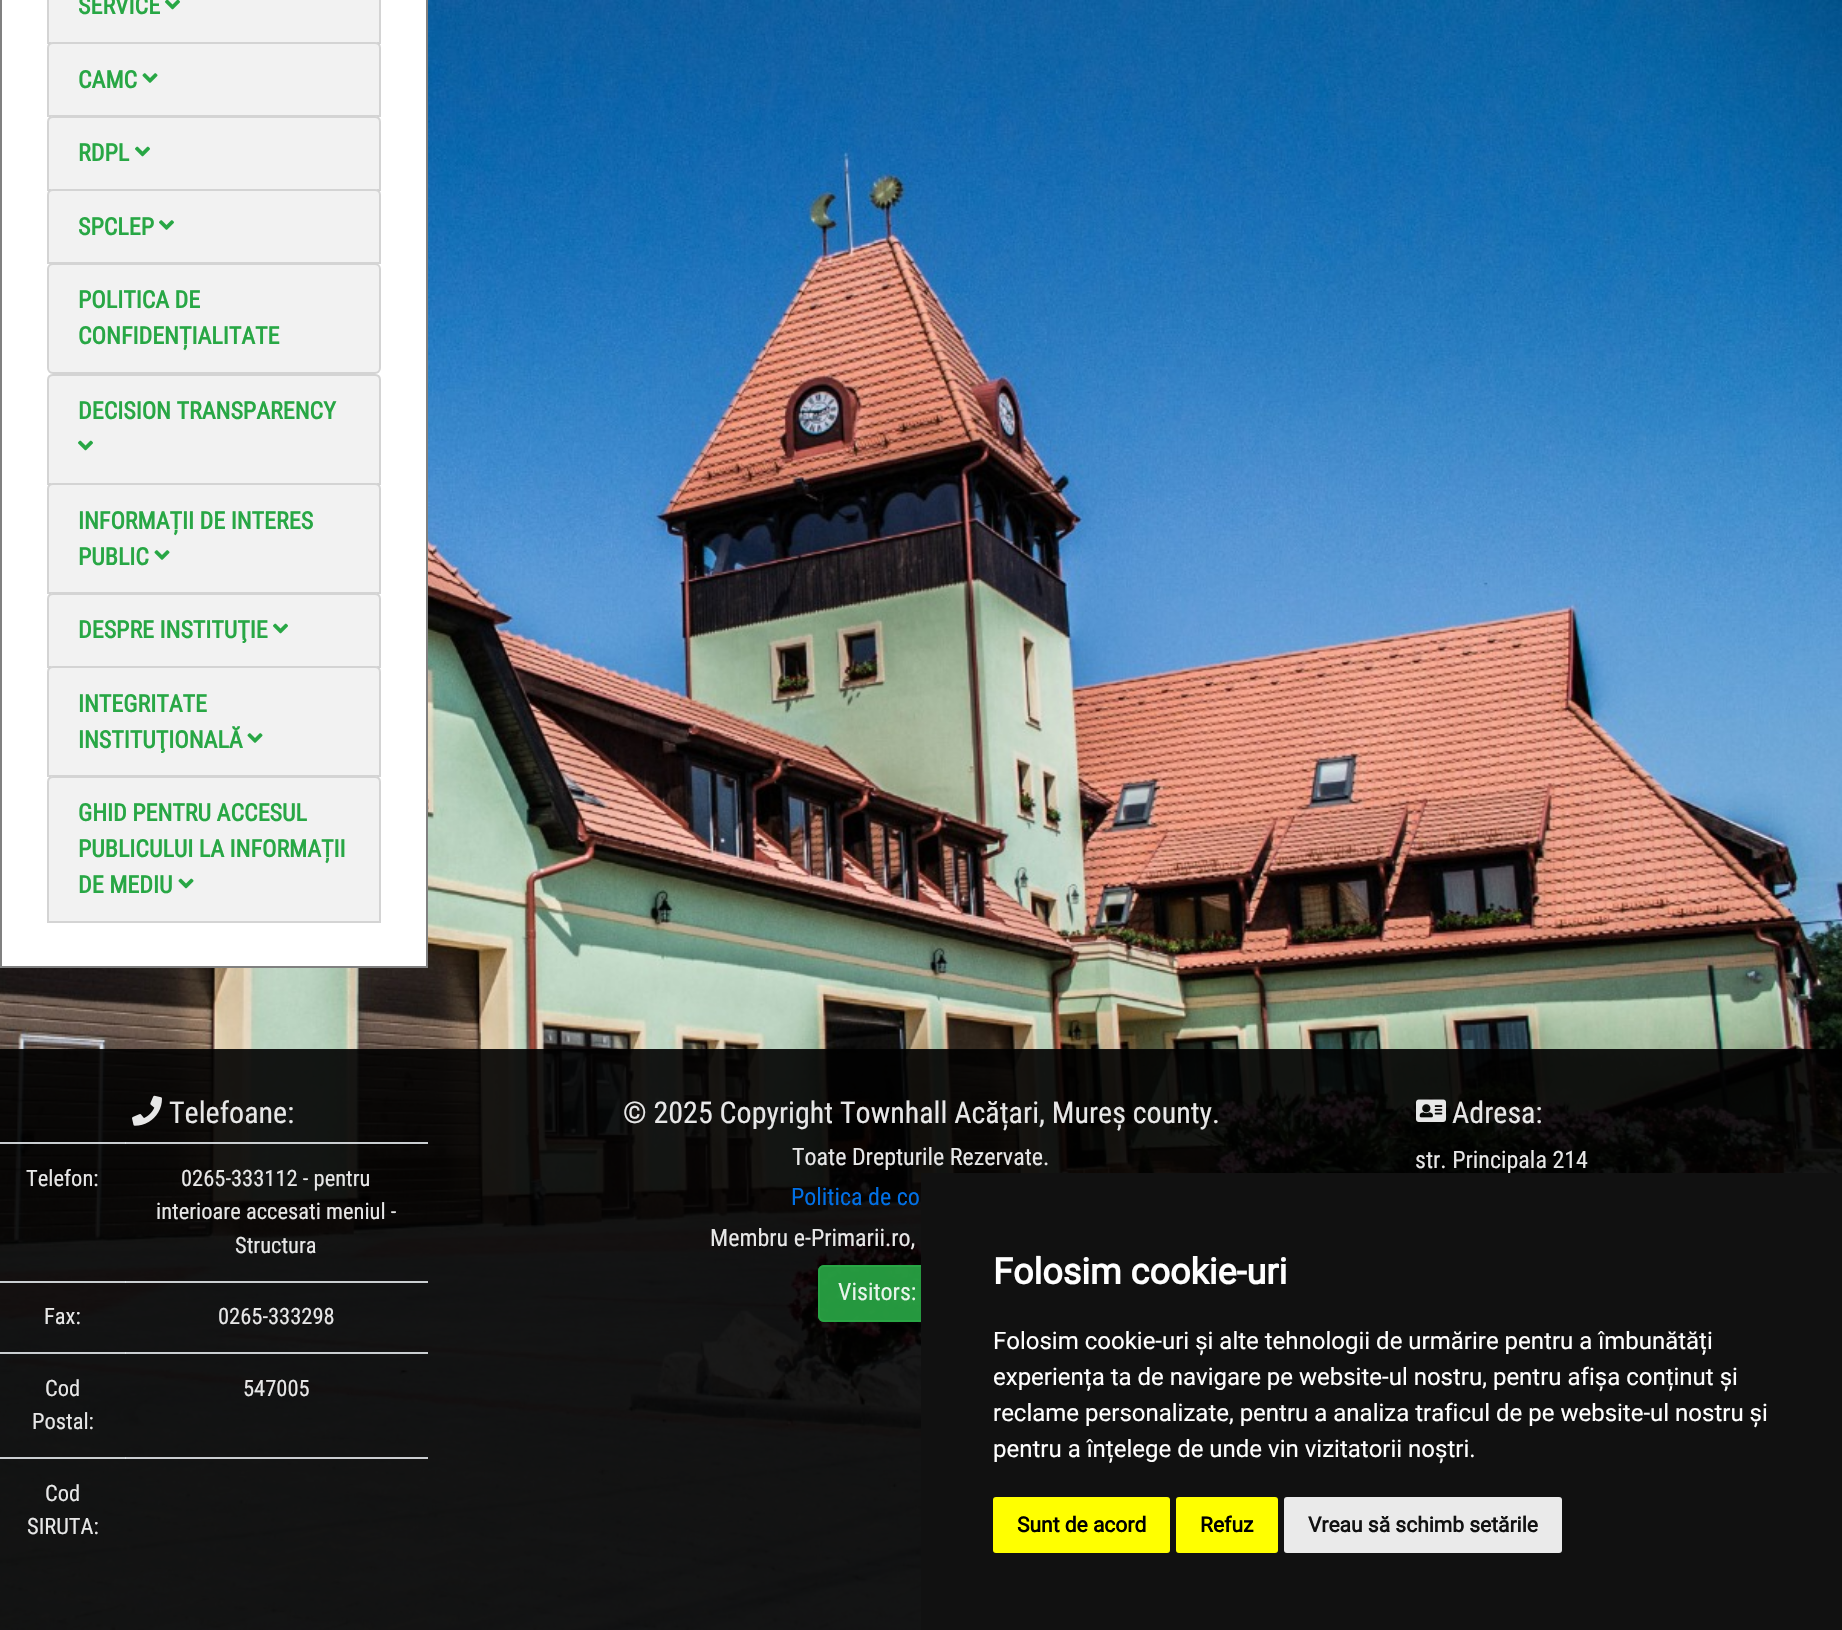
void draw(SkCanvas* c) {
SkPaint p;
p.setAntiAlias(true);
auto F=[&](const char* family, int weight, float size, bool italic = false){SkFontStyle style(weight, SkFontStyle::kNormal_Width,italic ? SkFontStyle::kItalic_Slant : SkFontStyle::kUpright_Slant);SkFont result(fontMgr->matchFamilyStyle(family, style), size);result.setSubpixel(true);return result;};
auto T=[&](const char* s, float x, float y, const SkFont& font){c->drawString(s, x, y, font, p);};
auto R=[&](float x, float y, float w, float h){c->drawRect(SkRect::MakeXYWH(x, y, w, h), p);};
auto Q=[&](float x, float y, float w, float h, float radius){c->drawRoundRect(SkRect::MakeXYWH(x, y, w, h), radius, radius, p);};
auto I=[&](const char* path, float x, float y, float w, float h){auto image = SkImages::DeferredFromEncodedData(SkData::MakeFromFileName(path));c->drawImageRect(image, SkRect::MakeXYWH(x, y, w, h), SkSamplingOptions());};
auto P=[&](const char* data, bool evenOdd = false){SkPath result = *SkParsePath::FromSVGString(data);if (evenOdd) result.setFillType(SkPathFillType::kEvenOdd);return result;};
c->clear(0xffffffff);
I("1.png",0,0,1842,1630);
p.setColor(0xffffffff);
c->drawRect(SkRect::MakeXYWH(1,-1,426,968),p);
p.setStroke(true);
p.setStrokeWidth(2);
p.setColor(0xff808080);
c->drawRect(SkRect::MakeXYWH(1,-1,426,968),p);
p.setStroke(false);
p.setColor(0xfff2f2f2);
c->drawRect(SkRect::MakeXYWH(48,-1,332,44),p);
p.setStroke(true);
p.setColor(0xffd4d4d4);
c->drawRect(SkRect::MakeXYWH(48,-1,332,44),p);
auto f1 = F("Roboto Condensed",700,24);
p.setStroke(false);
p.setColor(0xff28a745);
T("SERVICE",78,14,f1);
I("2.png",165,0,15,10);
p.setColor(0xfff2f2f2);
c->drawPath(P("M53 42h322c3.5 0 6 2.5 6 6v69h-334v-69c0-3.5 2.5-6 6-6z"),p);
p.setStroke(true);
p.setColor(0x1f000000);
c->drawPath(P("M53 43h322c3 0 5 2 5 5v68h-332v-68c0-3 2-5 5-5z"),p);
p.setStroke(false);
p.setColor(0xff28a745);
T("CAMC",78,88,f1);
I("3.png",142,73,16,10);
p.setColor(0xfff2f2f2);
c->drawPath(P("M53 116h322c3.5 0 6 2.5 6 6v69h-334v-69c0-3.5 2.5-6 6-6z"),p);
p.setStroke(true);
p.setColor(0x1f000000);
c->drawPath(P("M53 117h322c3 0 5 2 5 5v68h-332v-68c0-3 2-5 5-5z"),p);
p.setStroke(false);
p.setColor(0xff28a745);
T("RDPL",78,161,f1);
I("4.png",135,146,15,11);
p.setColor(0xfff2f2f2);
c->drawPath(P("M53 189h322c3.5 0 6 2.5 6 6v69h-334v-69c0-3.5 2.5-6 6-6z"),p);
p.setStroke(true);
p.setColor(0x1f000000);
c->drawPath(P("M53 190h322c3 0 5 2 5 5v68h-332v-68c0-3 2-5 5-5z"),p);
p.setStroke(false);
p.setColor(0xff28a745);
T("SPCLEP",78,235,f1);
I("5.png",159,220,15,10);
p.setColor(0xfff2f2f2);
Q(47,263,334,111,6);
p.setStroke(true);
p.setColor(0x1f000000);
c->drawRoundRect(SkRect::MakeXYWH(48,264,332,109),5,5,p);
p.setStroke(false);
p.setColor(0xff28a745);
T("POLITICA DE",78,308,f1);
T("CONFIDENȚIALITATE",78,344,f1);
p.setColor(0xfff2f2f2);
c->drawPath(P("M53 374h322c3.5 0 6 2.5 6 6v105h-334v-105c0-3.5 2.5-6 6-6z"),p);
p.setStroke(true);
p.setColor(0x1f000000);
c->drawPath(P("M53 375h322c3 0 5 2 5 5v104h-332v-104c0-3 2-5 5-5z"),p);
p.setStroke(false);
p.setColor(0xff28a745);
T("DECISION TRANSPARENCY",78,419,f1);
I("4.png",78,440,15,11);
p.setColor(0xfff2f2f2);
c->drawPath(P("M53 483h322c3.5 0 6 2.5 6 6v105h-334v-105c0-3.5 2.5-6 6-6z"),p);
p.setStroke(true);
p.setColor(0x1f000000);
c->drawPath(P("M53 484h322c3 0 5 2 5 5v104h-332v-104c0-3 2-5 5-5z"),p);
p.setStroke(false);
p.setColor(0xff28a745);
T("INFORMAȚII DE INTERES",78,529,f1);
T("PUBLIC",78,565,f1);
I("3.png",154,550,16,10);
p.setColor(0xfff2f2f2);
c->drawPath(P("M53 593h322c3.5 0 6 2.5 6 6v69h-334v-69c0-3.5 2.5-6 6-6z"),p);
p.setStroke(true);
p.setColor(0x1f000000);
c->drawPath(P("M53 594h322c3 0 5 2 5 5v68h-332v-68c0-3 2-5 5-5z"),p);
p.setStroke(false);
p.setColor(0xff28a745);
T("DESPRE INSTITUŢIE",78,638,f1);
I("4.png",273,623,15,11);
p.setColor(0xfff2f2f2);
c->drawPath(P("M53 666h322c3.5 0 6 2.5 6 6v105h-334v-105c0-3.5 2.5-6 6-6z"),p);
p.setStroke(true);
p.setColor(0x1f000000);
c->drawPath(P("M53 667h322c3 0 5 2 5 5v104h-332v-104c0-3 2-5 5-5z"),p);
p.setStroke(false);
p.setColor(0xff28a745);
T("INTEGRITATE",78,712,f1);
T("INSTITUŢIONALĂ",78,748,f1);
I("3.png",247,733,16,10);
p.setColor(0xfff2f2f2);
c->drawPath(P("M53 776h322c3.5 0 6 2.5 6 6v141h-334v-141c0-3.5 2.5-6 6-6z"),p);
p.setStroke(true);
p.setColor(0x1f000000);
c->drawPath(P("M53 777h322c3 0 5 2 5 5v140h-332v-140c0-3 2-5 5-5z"),p);
p.setStroke(false);
p.setColor(0xff28a745);
T("GHID PENTRU ACCESUL",78,821,f1);
T("PUBLICULUI LA INFORMAȚII",78,857,f1);
T("DE MEDIU",78,893,f1);
I("6.png",178,878,16,11);
p.setColor(0xe6000000);
R(0,1049,1842,581);
I("7.png",132,1095,30,31);
auto f2 = F("Roboto Condensed",400,30);
p.setColor(0xffe7e7e7);
T("Telefoane:",169,1123,f2);
p.setColor(0xe6dee2e6);
R(125,1142,303,2);
R(0,1142,126,2);
auto f3 = F("Roboto Condensed",400,22.5);
p.setColor(0xffe7e7e7);
T("Telefon:",26,1186,f3);
T("0265-333112 - pentru",181,1186,f3);
T("interioare accesati meniul -",156,1219,f3);
T("Structura",235,1253,f3);
p.setColor(0xe6dee2e6);
R(125,1281,303,2);
R(0,1281,126,2);
p.setColor(0xffe7e7e7);
T("Fax:",44,1324,f3);
T("0265-333298",218,1324,f3);
p.setColor(0xe6dee2e6);
R(125,1352,303,2);
R(0,1352,126,2);
p.setColor(0xffe7e7e7);
T("Cod",45,1396,f3);
T("Postal:",32,1429,f3);
T("547005",243,1396,f3);
p.setColor(0xffcacdd1);
R(125,1457,303,2);
p.setColor(0xe6dee2e6);
R(0,1457,126,2);
p.setColor(0xffe7e7e7);
T("Cod",45,1501,f3);
T("SIRUTA:",27,1534,f3);
T("© 2025 Copyright Townhall Acățari, Mureș county.",623,1123,f2);
auto f4 = F("Roboto Condensed",400,24);
T("Toate Drepturile Rezervate.",792,1165,f4);
p.setColor(0xff0170e6);
T("Politica de co",791,1205,f4);
p.setColor(0xffe7e7e7);
T("Membru e-Primarii.ro,",710,1246,f4);
p.setColor(0xe628a745);
Q(818,1265,207,57,6);
p.setStroke(true);
c->drawRoundRect(SkRect::MakeXYWH(819,1266,205,55),5,5,p);
p.setStroke(false);
p.setColor(0xffe9f5ec);
T("Visitors:",838,1300,f4);
I("8.png",1416,1099,30,23);
p.setColor(0xffe7e7e7);
T("Adresa:",1452,1123,f2);
T("str. Principala 214",1415,1168,f4);
p.setColor(0xff111111);
R(921,1173,921,457);
auto f5 = F("Roboto",700,36);
p.setColor(0xffffffff);
T("Folosim cookie-uri",993,1284,f5);
auto f6 = F("Roboto",400,24);
T("Folosim cookie-uri și alte tehnologii de urmărire pentru a îmbunătăți",993,1349,f6);
T("experiența ta de navigare pe website-ul nostru, pentru afișa conținut și",993,1385,f6);
T("reclame personalizate, pentru a analiza traficul de pe website-ul nostru și",993,1421,f6);
T("pentru a înțelege de unde vin vizitatorii noștri.",993,1457,f6);
p.setColor(0xffffff00);
Q(993,1497,177,56,3);
auto f7 = F("Roboto",700,21);
p.setColor(0xff000000);
T("Sunt de acord",1017,1532,f7);
p.setColor(0xffffff00);
Q(1176,1497,102,56,3);
p.setColor(0xff000000);
T("Refuz",1200,1532,f7);
p.setColor(0xffeaeaea);
Q(1284,1497,278,56,3);
p.setColor(0xff111111);
T("Vreau să schimb setările",1308,1532,f7);
}
